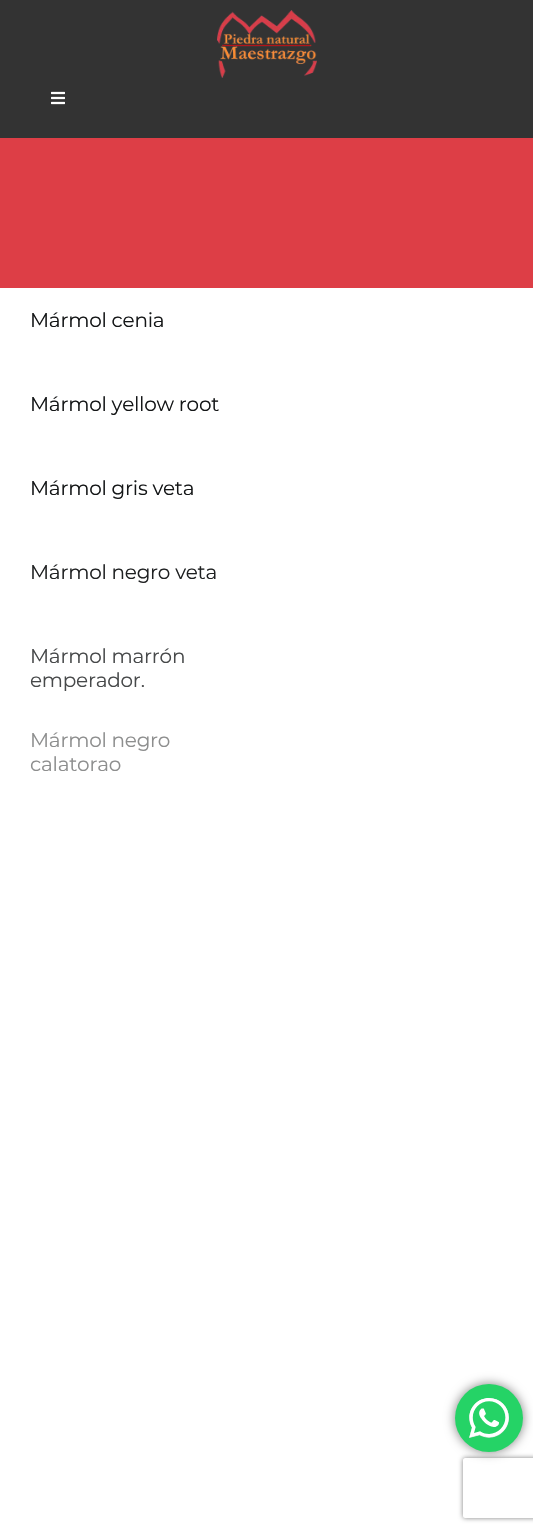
void draw(SkCanvas* c) {
SkPaint p;
p.setAntiAlias(true);
auto F=[&](const char* family, int weight, float size, bool italic = false){SkFontStyle style(weight, SkFontStyle::kNormal_Width,italic ? SkFontStyle::kItalic_Slant : SkFontStyle::kUpright_Slant);SkFont result(fontMgr->matchFamilyStyle(family, style), size);result.setSubpixel(true);return result;};
auto L=[&](const char* s, float x, float y, const SkFont& font, const SkPaint& ink, float letter, float word){std::vector<SkGlyphID> glyphs(font.countText(s, strlen(s), SkTextEncoding::kUTF8));std::vector<float> xs(glyphs.size());font.textToGlyphs(s, strlen(s), SkTextEncoding::kUTF8, glyphs);font.getXPos(glyphs, xs, x);float extra = 0;for (size_t i = 0; i < glyphs.size(); i++) {xs[i] += extra;extra += letter + word * (glyphs[i] == font.unicharToGlyph(' '));}c->drawTextBlob(SkTextBlob::MakeFromPosHGlyphs(glyphs, xs, y, font), 0, 0, ink);};
auto R=[&](float x, float y, float w, float h){c->drawRect(SkRect::MakeXYWH(x, y, w, h), p);};
auto I=[&](const char* path, float x, float y, float w, float h){auto image = SkImages::DeferredFromEncodedData(SkData::MakeFromFileName(path));c->drawImageRect(image, SkRect::MakeXYWH(x, y, w, h), SkSamplingOptions());};
auto P=[&](const char* data, bool evenOdd = false){SkPath result = *SkParsePath::FromSVGString(data);if (evenOdd) result.setFillType(SkPathFillType::kEvenOdd);return result;};
c->clear(0xffffffff);
p.setColor(0xff333333);
R(0,0,533,138);
I("1.png",217,10,100,68);
I("2.png",51,91,14,14);
p.setColor(0xffdd3e46);
R(0,138,533,150);
auto f1 = F("Montserrat",400,20);
p.setColor(0xff141617);
L("Mármol cenia",30,327,f1,p,-.25,0);
L("Mármol yellow root",30,411,f1,p,-.25,0);
L("Mármol gris veta",30,495,f1,p,-.25,0);
p.setColor(0xff1f2122);
L("Mármol negro veta",30,579,f1,p,-.25,0);
p.setColor(0xff47494a);
L("Mármol marrón",30,663,f1,p,-.25,0);
L("emperador.",30,687,f1,p,-.25,0);
p.setColor(0xff8d8e8e);
L("Mármol negro",30,747,f1,p,-.25,0);
L("calatorao",30,771,f1,p,-.25,0);
p.setColor(0x80000000);
p.setMaskFilter(SkMaskFilter::MakeBlur(kNormal_SkBlurStyle, 5.5));
c->drawRoundRect(SkRect::MakeXYWH(455,1384,68,68),34,34,p);
p.setMaskFilter(nullptr);
c->save();
c->clipPath(P("M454 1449h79v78h-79zm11 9h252c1 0 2 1 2 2v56c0 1-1 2-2 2h-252c-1 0-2-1-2-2v-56c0-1 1-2 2-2z",true),true);
p.setColor(0xff808080);
p.setMaskFilter(SkMaskFilter::MakeBlur(kNormal_SkBlurStyle, 2.5));
c->drawRoundRect(SkRect::MakeXYWH(463,1458,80,60),2,2,p);
p.setMaskFilter(nullptr);
c->restore();
p.setColor(0xff25d366);
c->drawCircle(489,1418,34,p);
I("3.png",469,1398,40,40);
}
